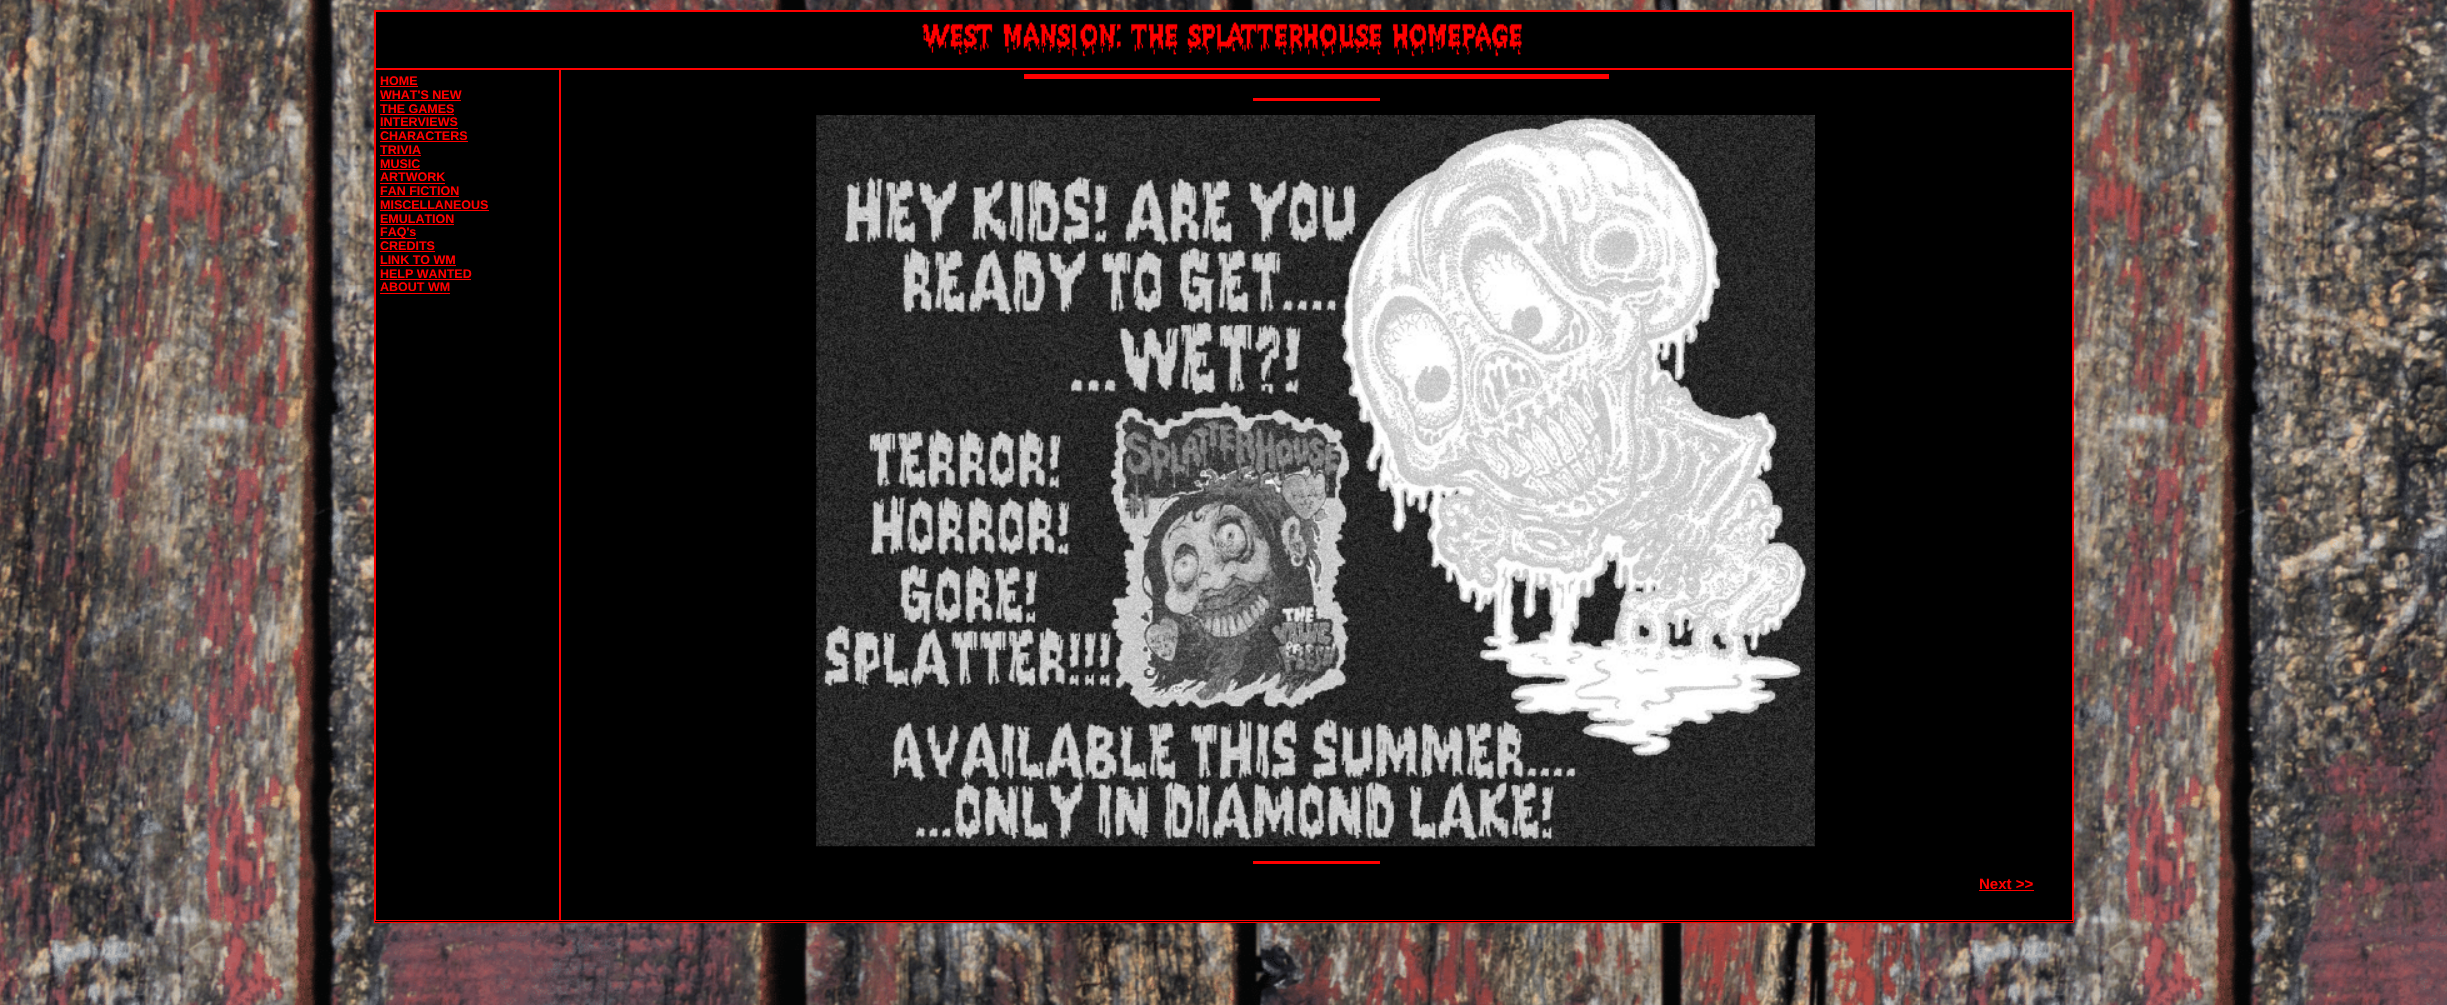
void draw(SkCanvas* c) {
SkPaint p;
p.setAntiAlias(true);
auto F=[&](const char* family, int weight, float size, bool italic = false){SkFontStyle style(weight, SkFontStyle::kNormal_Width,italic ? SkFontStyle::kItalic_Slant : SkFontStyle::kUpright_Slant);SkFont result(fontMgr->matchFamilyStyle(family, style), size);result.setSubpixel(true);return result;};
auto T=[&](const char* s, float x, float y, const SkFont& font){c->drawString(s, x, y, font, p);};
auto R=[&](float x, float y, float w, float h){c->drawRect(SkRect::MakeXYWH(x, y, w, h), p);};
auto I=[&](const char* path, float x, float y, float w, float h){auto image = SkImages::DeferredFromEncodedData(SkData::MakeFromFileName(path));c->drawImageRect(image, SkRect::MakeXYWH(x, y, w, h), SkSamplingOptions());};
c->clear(0xffffffff);
I("1.png",0,0,2447,1005);
p.setColor(0xff000000);
R(375,12,1698,910);
p.setStroke(true);
p.setStrokeWidth(1);
p.setColor(0xffff0000);
c->drawRect(SkRect::MakeXYWH(374.5,10.5,1699,912),p);
c->drawRect(SkRect::MakeXYWH(375.5,11.5,1697,57),p);
I("2.png",922,22,600,35);
c->drawRect(SkRect::MakeXYWH(375.5,69.5,184,851),p);
auto f1 = F("Liberation Sans",700,12.5);
p.setStroke(false);
T("HOME",380,85,f1);
R(380,86,38,1);
T("WHAT'S NEW",380,99,f1);
R(380,100,81,1);
T("THE GAMES",380,113,f1);
R(380,114,74,1);
T("INTERVIEWS",380,126,f1);
R(380,128,78,1);
T("CHARACTERS",380,140,f1);
R(380,141,88,1);
T("TRIVIA",380,154,f1);
R(380,155,41,1);
T("MUSIC",380,168,f1);
R(380,169,40,1);
T("ARTWORK",380,181,f1);
R(380,183,65,1);
T("FAN FICTION",380,195,f1);
R(380,196,79,1);
T("MISCELLANEOUS",380,209,f1);
R(380,210,109,1);
T("EMULATION",380,223,f1);
R(380,224,74,1);
R(380,238,36,1);
T("FAQ's",380,236,f1);
T("CREDITS",380,250,f1);
R(380,251,55,1);
T("LINK TO WM",380,264,f1);
R(380,265,76,1);
T("HELP WANTED",380,278,f1);
R(380,279,91,1);
T("ABOUT WM",380,291,f1);
R(380,293,70,1);
p.setStroke(true);
c->drawRect(SkRect::MakeXYWH(560.5,69.5,1512,851),p);
c->drawRect(SkRect::MakeXYWH(1024.5,74.5,584,4),p);
p.setStroke(false);
R(1025,75,583,3);
R(1253,98,127,3);
I("3.png",816,115,999,732);
R(1253,861,127,3);
auto f2 = F("Liberation Sans",700,15);
T("Next >>",1979,889,f2);
R(1979,890,55,1);
}
